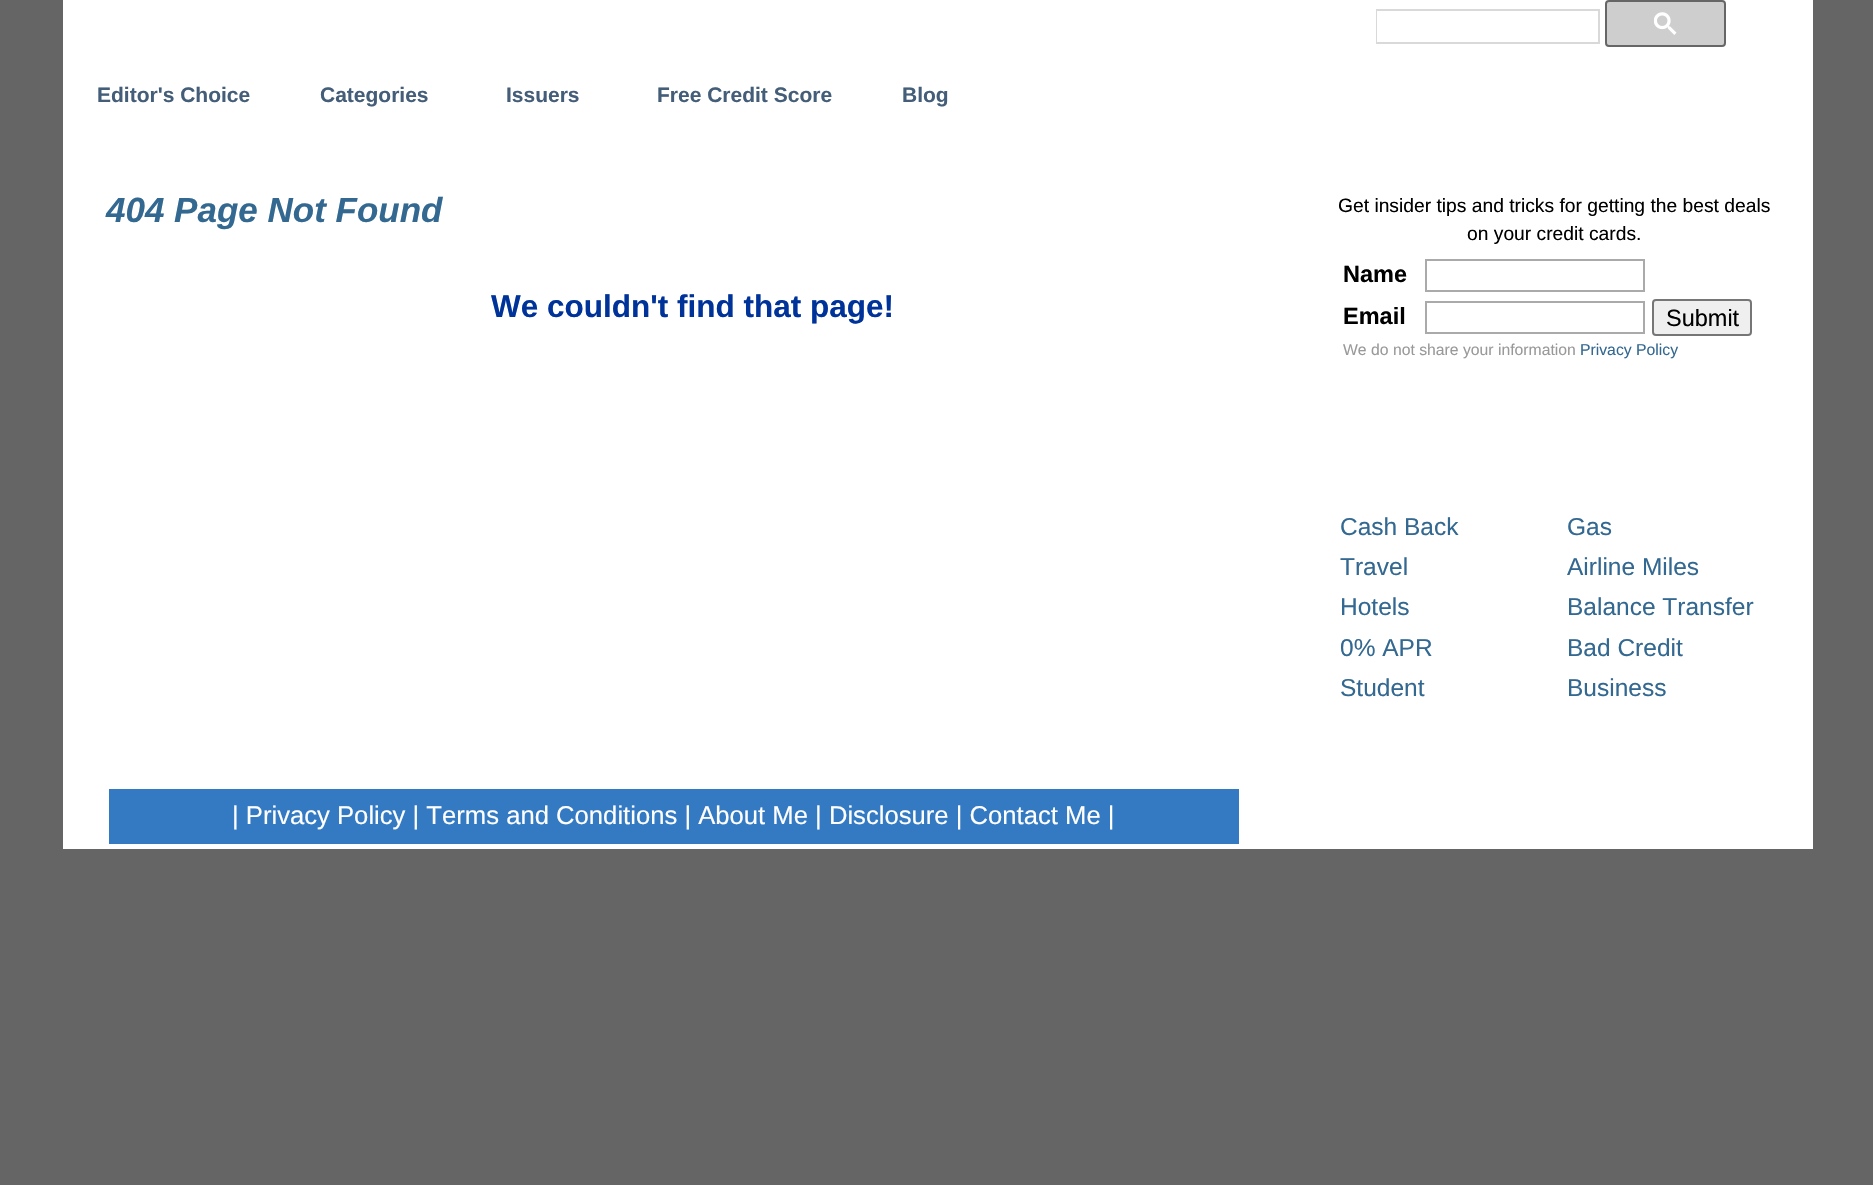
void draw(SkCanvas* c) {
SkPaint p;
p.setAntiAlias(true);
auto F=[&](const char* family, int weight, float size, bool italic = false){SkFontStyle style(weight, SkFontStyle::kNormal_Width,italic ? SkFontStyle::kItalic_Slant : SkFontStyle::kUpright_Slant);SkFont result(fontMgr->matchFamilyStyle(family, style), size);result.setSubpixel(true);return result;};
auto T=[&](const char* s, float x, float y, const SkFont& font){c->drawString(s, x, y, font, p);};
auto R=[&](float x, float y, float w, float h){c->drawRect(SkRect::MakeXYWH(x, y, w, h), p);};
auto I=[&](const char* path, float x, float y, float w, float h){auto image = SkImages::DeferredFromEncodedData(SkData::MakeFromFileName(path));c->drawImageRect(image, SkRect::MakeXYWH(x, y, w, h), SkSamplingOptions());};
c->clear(0xff656565);
p.setColor(0xffffffff);
R(63,0,1750,849);
p.setStroke(true);
p.setStrokeWidth(2);
p.setColor(0xffd9d9d9);
c->drawRect(SkRect::MakeXYWH(1377,10,222,33),p);
p.setStroke(false);
p.setColor(0xffffffff);
R(1377,11,1,31);
p.setColor(0xffcecece);
c->drawRoundRect(SkRect::MakeXYWH(1606,1,119,45),3,3,p);
p.setStroke(true);
p.setColor(0xff666666);
c->drawRoundRect(SkRect::MakeXYWH(1606,1,119,45),3,3,p);
I("1.png",1654,12,23,23);
auto f1 = F("Liberation Sans",700,21);
p.setStroke(false);
p.setColor(0xff445e79);
T("Editor's Choice",97,102,f1);
T("Categories",320,102,f1);
T("Issuers",506,102,f1);
T("Free Credit Score",657,102,f1);
T("Blog",902,102,f1);
auto f2 = F("Liberation Sans",700,35,true);
p.setColor(0xff336891);
T("404 Page Not Found",106,222,f2);
auto f3 = F("Liberation Sans",700,31.5);
p.setColor(0xff003399);
T("We couldn't find that page!",491,317,f3);
auto f4 = F("Liberation Sans",400,19.25);
p.setColor(0xff000000);
T("Get insider tips and tricks for getting the best deals",1338,212,f4);
T("on your credit cards.",1467,240,f4);
auto f5 = F("Liberation Sans",700,23.5);
T("Name",1343,282,f5);
p.setStroke(true);
p.setColor(0xffaaaaaa);
c->drawRect(SkRect::MakeXYWH(1426,260,218,31),p);
p.setStroke(false);
p.setColor(0xff000000);
T("Email",1343,324,f5);
p.setStroke(true);
p.setColor(0xffaaaaaa);
c->drawRect(SkRect::MakeXYWH(1426,302,218,31),p);
p.setStroke(false);
p.setColor(0xffefefef);
c->drawRoundRect(SkRect::MakeXYWH(1653,300,98,35),3,3,p);
p.setStroke(true);
p.setColor(0xff767676);
c->drawRoundRect(SkRect::MakeXYWH(1653,300,98,35),3,3,p);
auto f6 = F("Liberation Sans",400,23.5);
p.setStroke(false);
p.setColor(0xff000000);
T("Submit",1666,326,f6);
auto f7 = F("Liberation Sans",400,15.75);
p.setColor(0xff999999);
T("We do not share your information",1343,355,f7);
p.setColor(0xff336891);
T("Privacy Policy",1580,355,f7);
auto f8 = F("Liberation Sans",400,24.5);
T("Cash Back",1340,535,f8);
T("Gas",1567,535,f8);
T("Travel",1340,575,f8);
T("Airline Miles",1567,575,f8);
T("Hotels",1340,615,f8);
T("Balance Transfer",1567,615,f8);
T("0% APR",1340,656,f8);
T("Bad Credit",1567,656,f8);
T("Student",1340,696,f8);
T("Business",1567,696,f8);
p.setColor(0xff347ac3);
R(109,789,1130,55);
auto f9 = F("Liberation Sans",400,25.65);
p.setColor(0xffffffff);
T("| Privacy Policy | Terms and Conditions | About Me | Disclosure | Contact Me |",232,824,f9);
}
